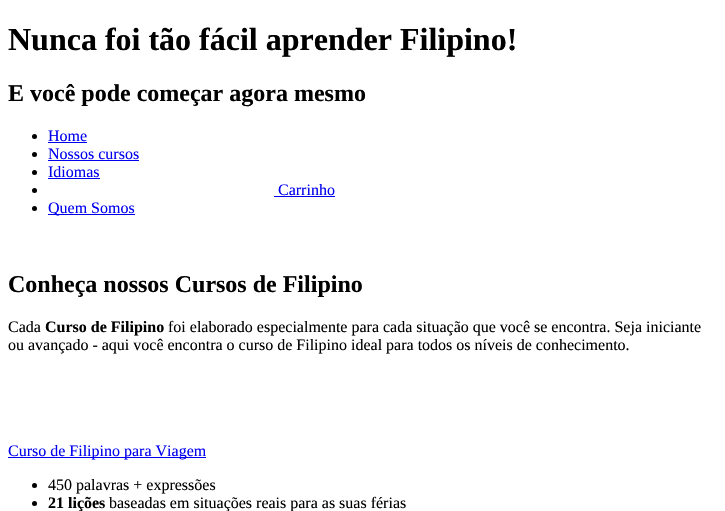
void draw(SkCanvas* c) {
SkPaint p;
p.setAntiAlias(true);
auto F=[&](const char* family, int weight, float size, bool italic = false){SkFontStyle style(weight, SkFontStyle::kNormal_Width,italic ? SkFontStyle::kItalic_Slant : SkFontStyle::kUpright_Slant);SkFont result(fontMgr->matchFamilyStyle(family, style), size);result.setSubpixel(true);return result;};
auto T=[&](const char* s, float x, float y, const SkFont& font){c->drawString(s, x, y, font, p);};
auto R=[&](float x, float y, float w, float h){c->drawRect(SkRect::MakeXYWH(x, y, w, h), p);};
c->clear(0xffffffff);
auto f1 = F("Liberation Serif",700,32);
p.setColor(0xff000000);
T("Nunca foi tão fácil aprender Filipino!",8,50,f1);
auto f2 = F("Liberation Serif",700,24);
T("E você pode começar agora mesmo",8,101,f2);
c->drawCircle(34.5,136.5,2.5,p);
auto f3 = F("Liberation Serif",400,16);
p.setColor(0xff0000ee);
T("Home",48,141,f3);
R(48,142,39,1);
p.setColor(0xff000000);
c->drawCircle(34.5,154.5,2.5,p);
p.setColor(0xff0000ee);
T("Nossos cursos",48,159,f3);
R(48,160,91,1);
p.setColor(0xff000000);
c->drawCircle(34.5,172.5,2.5,p);
p.setColor(0xff0000ee);
T("Idiomas",48,177,f3);
R(48,178,52,1);
p.setColor(0xff000000);
c->drawCircle(34.5,190.5,2.5,p);
p.setColor(0xff0000ee);
T("Carrinho",278,195,f3);
R(274,196,61,1);
p.setColor(0xff000000);
c->drawCircle(34.5,208.5,2.5,p);
p.setColor(0xff0000ee);
R(48,214,87,1);
T("Quem Somos",48,213,f3);
p.setColor(0xff000000);
T("Conheça nossos Cursos de Filipino",8,292,f2);
T("Cada",8,332,f3);
auto f4 = F("Liberation Serif",700,16);
T("Curso de Filipino",45,332,f4);
T("foi elaborado especialmente para cada situação que você se encontra. Seja iniciante",168,332,f3);
T("ou avançado - aqui você encontra o curso de Filipino ideal para todos os níveis de conhecimento.",8,350,f3);
p.setColor(0xff0000ee);
R(8,457,198,1);
T("Curso de Filipino para Viagem",8,456,f3);
p.setColor(0xff000000);
c->drawCircle(34.5,485.5,2.5,p);
T("450 palavras + expressões",48,490,f3);
c->drawCircle(34.5,503.5,2.5,p);
T("21 lições",48,508,f4);
T("baseadas em situações reais para as suas férias",109,508,f3);
}
